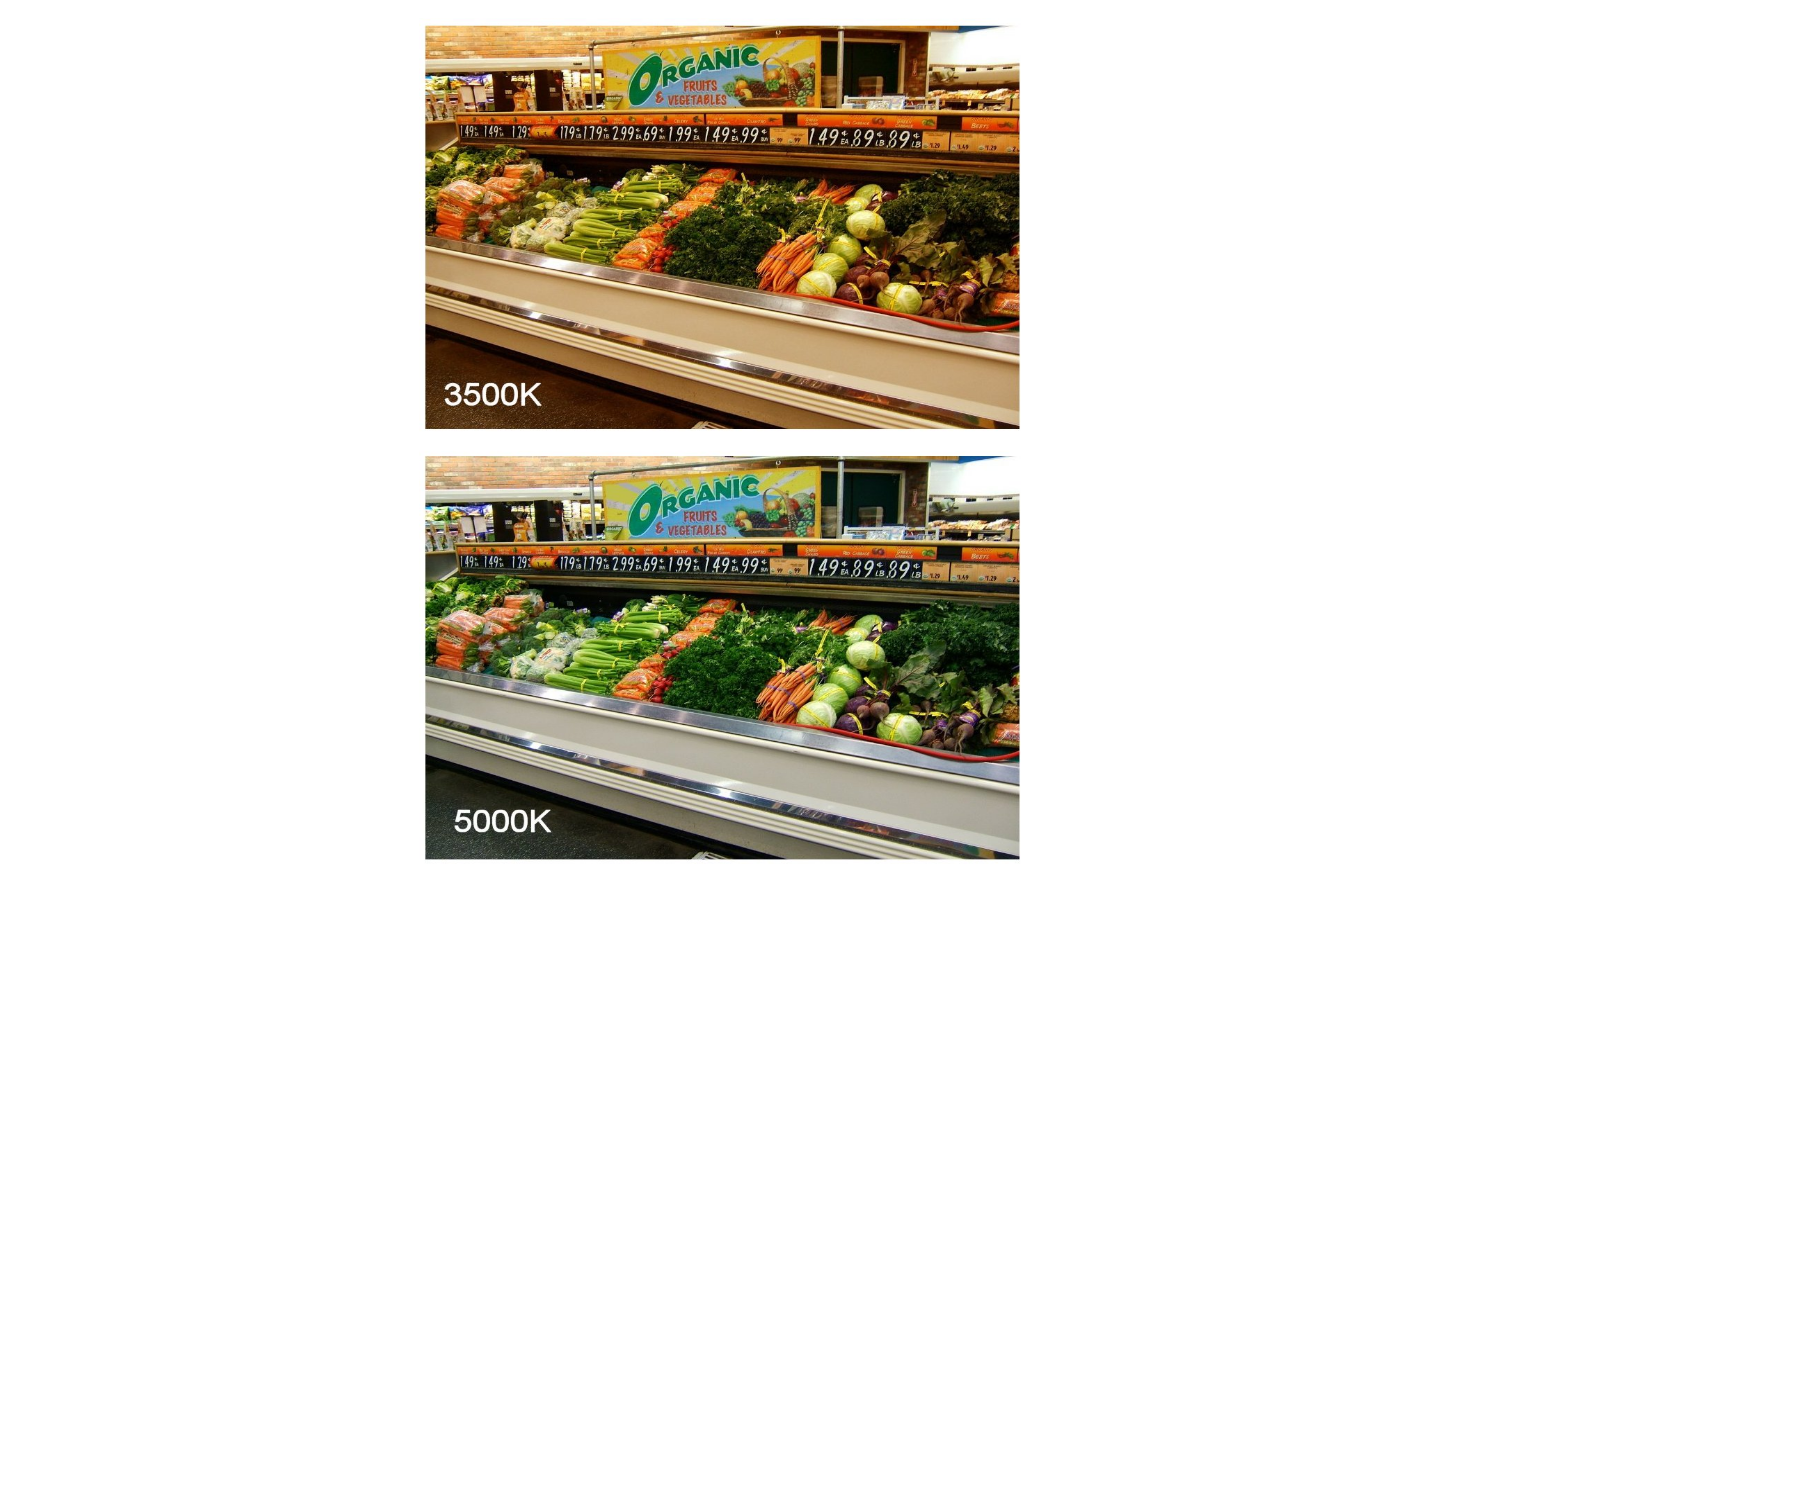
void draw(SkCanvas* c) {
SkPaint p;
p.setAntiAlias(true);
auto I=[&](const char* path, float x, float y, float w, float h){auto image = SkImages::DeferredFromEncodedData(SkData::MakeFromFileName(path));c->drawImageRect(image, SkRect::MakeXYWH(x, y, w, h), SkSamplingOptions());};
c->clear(0xffffffff);
I("1.png",419,18,602,846);
}
